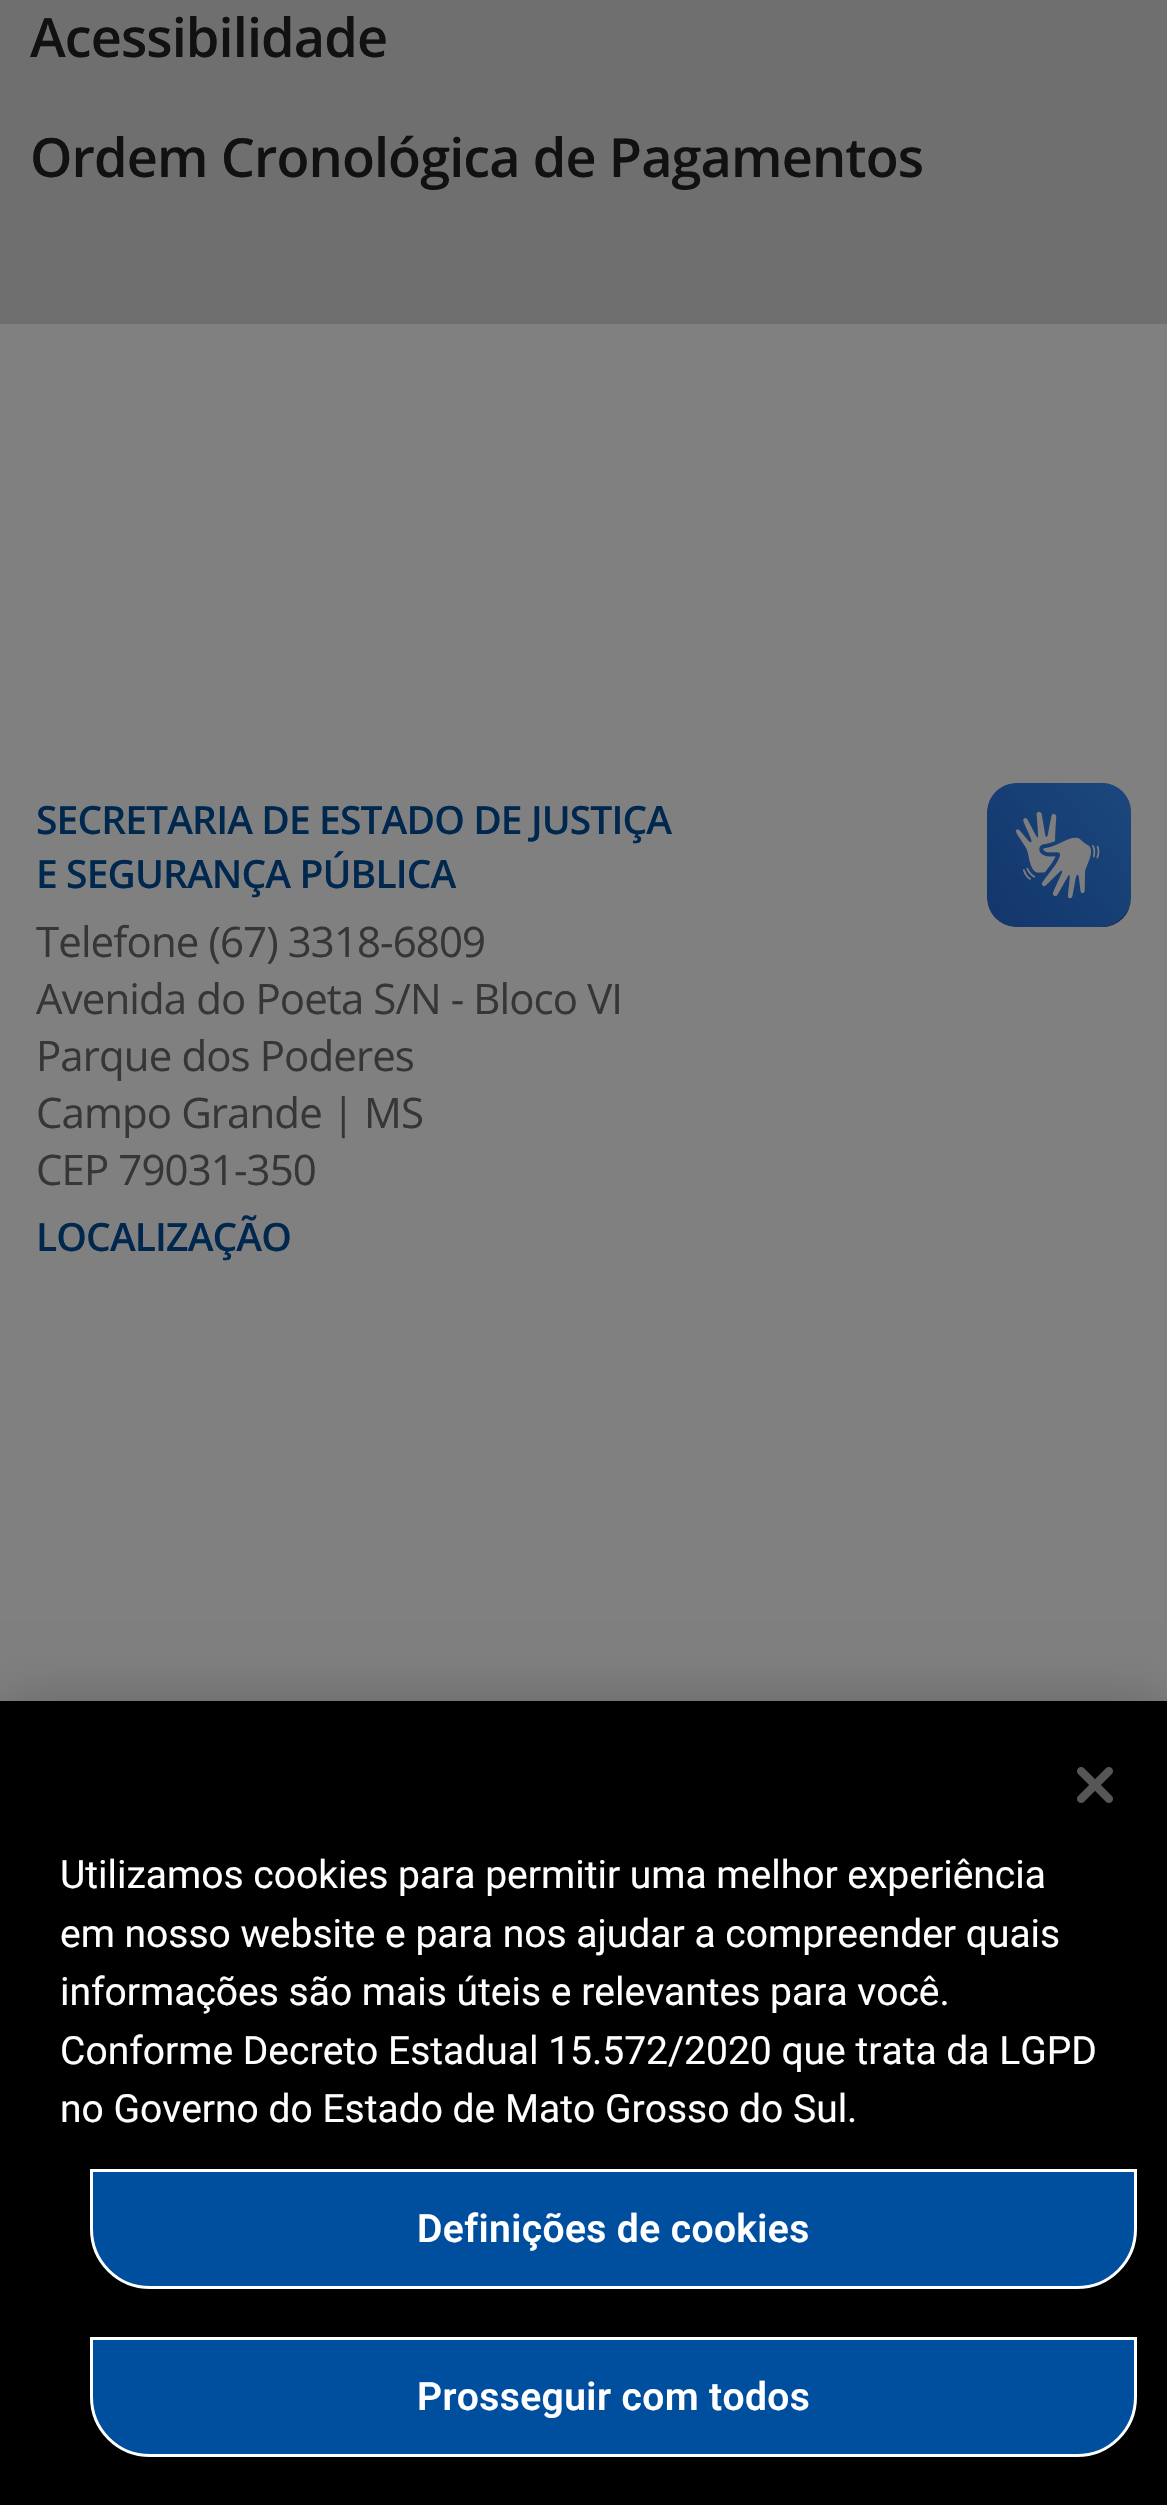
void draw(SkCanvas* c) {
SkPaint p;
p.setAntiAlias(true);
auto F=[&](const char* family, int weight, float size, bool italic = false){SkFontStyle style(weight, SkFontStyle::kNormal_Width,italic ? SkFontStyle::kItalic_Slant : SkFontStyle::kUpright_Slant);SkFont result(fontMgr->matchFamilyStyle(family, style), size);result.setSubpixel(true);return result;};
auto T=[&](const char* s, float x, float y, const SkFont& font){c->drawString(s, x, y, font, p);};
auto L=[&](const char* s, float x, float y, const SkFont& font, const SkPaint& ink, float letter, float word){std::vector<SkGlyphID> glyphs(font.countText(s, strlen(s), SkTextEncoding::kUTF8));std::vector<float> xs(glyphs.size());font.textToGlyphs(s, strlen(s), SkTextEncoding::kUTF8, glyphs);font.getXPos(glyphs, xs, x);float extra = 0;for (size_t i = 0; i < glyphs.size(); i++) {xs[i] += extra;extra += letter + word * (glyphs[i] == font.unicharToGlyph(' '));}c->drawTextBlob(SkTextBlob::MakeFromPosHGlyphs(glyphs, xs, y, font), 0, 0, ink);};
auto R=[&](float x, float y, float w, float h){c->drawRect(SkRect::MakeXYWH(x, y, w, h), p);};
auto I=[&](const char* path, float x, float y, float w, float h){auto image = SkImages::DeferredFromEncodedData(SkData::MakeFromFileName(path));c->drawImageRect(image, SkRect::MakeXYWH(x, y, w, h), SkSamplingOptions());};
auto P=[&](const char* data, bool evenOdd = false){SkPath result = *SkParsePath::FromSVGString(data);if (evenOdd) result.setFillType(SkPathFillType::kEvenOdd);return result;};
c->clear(0xff808080);
p.setColor(0xff6f6f6f);
R(0,0,1167,324);
auto f1 = F("Open Sans",600,54);
p.setColor(0xff121010);
L("Acessibilidade",30,57,f1,p,-.9,0);
L("Ordem Cronológica de Pagamentos",30,177,f1,p,-.9,0);
auto f2 = F("Open Sans",600,39);
p.setColor(0xff00284e);
L("SECRETARIA DE ESTADO DE JUSTIÇA",36,834,f2,p,-.9,0);
L("E SEGURANÇA PÚBLICA",36,888,f2,p,-.9,0);
auto f3 = F("Open Sans",400,42);
p.setColor(0xff363636);
L("Telefone (67) 3318-6809",36,957,f3,p,-.9,0);
L("Avenida do Poeta S/N - Bloco VI",36,1014,f3,p,-.9,0);
L("Parque dos Poderes",36,1071,f3,p,-.9,0);
L("Campo Grande | MS",36,1128,f3,p,-.9,0);
L("CEP 79031-350",36,1185,f3,p,-.9,0);
p.setColor(0xff00284e);
L("LOCALIZAÇÃO",36,1251,f2,p,-.9,0);
I("1.png",987,783,144,144);
I("2.png",987,783,144,144);
p.setColor(0x33000000);
p.setMaskFilter(SkMaskFilter::MakeBlur(kNormal_SkBlurStyle, 27));
c->drawRect(SkRect::MakeXYWH(0,1701,1167,804),p);
p.setMaskFilter(nullptr);
p.setColor(0xff000000);
R(0,1701,1167,804);
I("3.png",1077,1767,36,36);
auto f4 = F("Roboto",400,39);
p.setColor(0xffffffff);
T("Utilizamos cookies para permitir uma melhor experiência",60,1888,f4);
T("em nosso website e para nos ajudar a compreender quais",60,1947,f4);
T("informações são mais úteis e relevantes para você.",60,2005,f4);
T("Conforme Decreto Estadual 15.572/2020 que trata da LGPD",60,2064,f4);
T("no Governo do Estado de Mato Grosso do Sul.",60,2122,f4);
p.setColor(0xff004f9f);
c->drawPath(P("M91.5 2170.5h1044v58.5c0 32.5-26 58.5-58.5 58.5h-927c-32.5 0-58.5-26-58.5-58.5z"),p);
p.setStroke(true);
p.setStrokeWidth(3);
p.setColor(0xffffffff);
c->drawPath(P("M91.5 2170.5h1044v58.5c0 32.5-26 58.5-58.5 58.5h-927c-32.5 0-58.5-26-58.5-58.5z"),p);
auto f5 = F("Roboto",600,39);
p.setStroke(false);
L("Definições de cookies",417,2242,f5,p,.4,0);
p.setColor(0xff004f9f);
c->drawPath(P("M91.5 2338.5h1044v58.5c0 32.5-26 58.5-58.5 58.5h-927c-32.5 0-58.5-26-58.5-58.5z"),p);
p.setStroke(true);
p.setColor(0xffffffff);
c->drawPath(P("M91.5 2338.5h1044v58.5c0 32.5-26 58.5-58.5 58.5h-927c-32.5 0-58.5-26-58.5-58.5z"),p);
p.setStroke(false);
L("Prosseguir com todos",417,2410,f5,p,.4,0);
}
